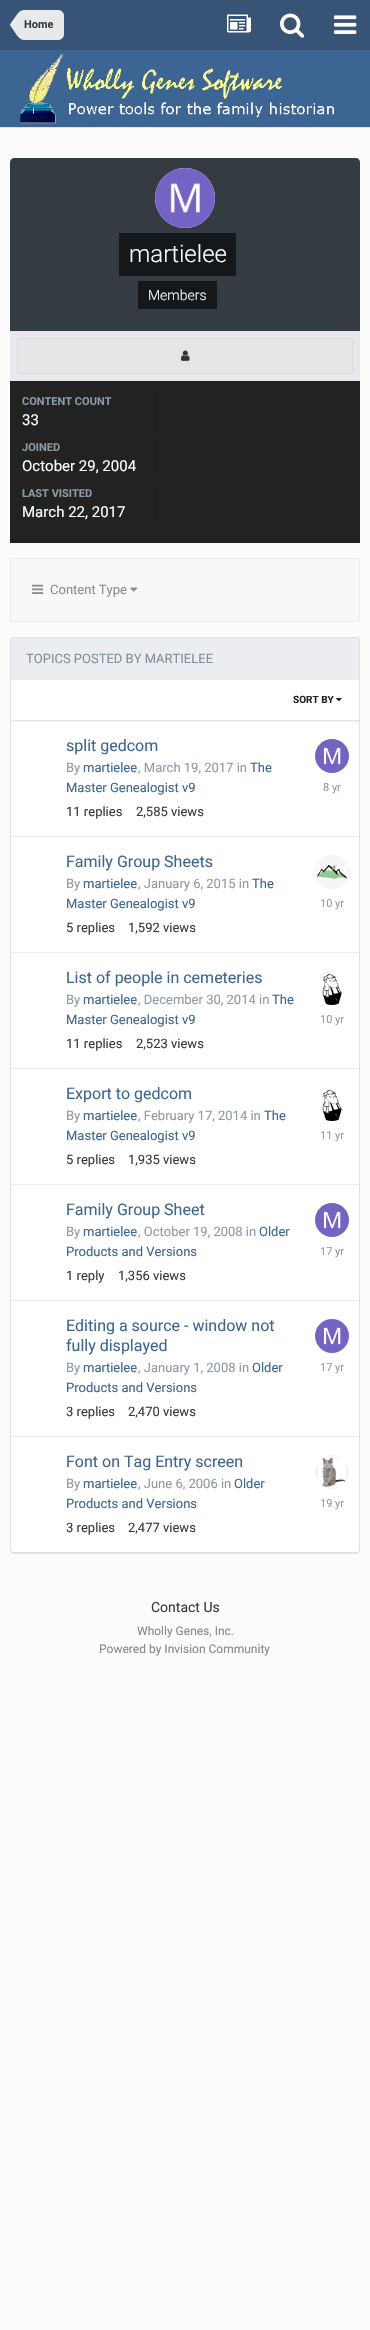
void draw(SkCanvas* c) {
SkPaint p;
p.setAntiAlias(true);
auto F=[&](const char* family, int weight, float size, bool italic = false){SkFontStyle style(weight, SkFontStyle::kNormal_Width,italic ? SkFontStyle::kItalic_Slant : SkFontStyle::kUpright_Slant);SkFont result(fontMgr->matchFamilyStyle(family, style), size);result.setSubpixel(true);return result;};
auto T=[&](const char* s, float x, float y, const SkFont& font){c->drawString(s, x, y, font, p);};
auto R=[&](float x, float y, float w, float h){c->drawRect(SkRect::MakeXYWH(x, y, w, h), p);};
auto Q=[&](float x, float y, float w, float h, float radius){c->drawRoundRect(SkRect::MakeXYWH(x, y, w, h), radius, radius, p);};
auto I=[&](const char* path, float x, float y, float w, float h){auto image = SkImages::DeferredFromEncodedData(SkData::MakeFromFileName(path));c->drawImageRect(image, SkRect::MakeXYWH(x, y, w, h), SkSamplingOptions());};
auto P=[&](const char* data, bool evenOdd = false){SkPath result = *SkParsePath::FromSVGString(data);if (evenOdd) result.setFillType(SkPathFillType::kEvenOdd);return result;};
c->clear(0xfffcfcfc);
p.setColor(0xffe3e3e3);
R(0,127,370,1);
p.setColor(0xff375476);
R(0,0,370,50);
p.setColor(0xffe8e9eb);
c->drawPath(P("M24 10h34c3.5 0 6 2.5 6 6v18c0 3.5-2.5 6-6 6h-34z"),p);
c->drawPath(P("M24 25v15c-2 0-4.5-1.5-7-4.5l-7-10.5zm0 0h-14c0-1 8.5-12.5 9-13c1.5-1 3-2 5-2z"),p);
auto f1 = F("Roboto",700,11);
p.setColor(0xff353c41);
T("Home",24,28,f1);
I("1.png",227,14,24,19);
I("2.png",280,13,25,25);
I("3.png",334,15,23,19);
p.setColor(0xff3d6594);
R(0,50,370,77);
I("4.png",20,53,314,71);
p.setColor(0xff353c41);
c->drawPath(P("M14 158h342c2 0 4 2 4 4v169h-350v-169c0-2 2-4 4-4z"),p);
p.setColor(0xffffffff);
c->drawCircle(185,198,30,p);
I("5.png",155,168,60,60);
p.setColor(0xff15181a);
R(119,233,117,43);
auto f2 = F("Roboto",300,24);
p.setColor(0xffffffff);
T("martielee",129,262,f2);
p.setColor(0xff15181a);
R(138,281,79,28);
auto f3 = F("Roboto",300,14);
p.setColor(0xffffffff);
T("Members",148,300,f3);
p.setColor(0xffe6e8eb);
R(10,331,350,50);
p.setColor(0xffe5e5e5);
Q(17,338,336,36,3);
p.setStroke(true);
p.setStrokeWidth(1);
p.setColor(0x08000000);
c->drawRect(SkRect::MakeXYWH(17.5,338.5,335,35),p);
I("6.png",181,350,9,11);
p.setStroke(false);
p.setColor(0xff222222);
R(10,381,350,162);
p.setColor(0xff1f1f1f);
R(156,393,1,36);
p.setColor(0xff8d9aa6);
T("CONTENT COUNT",22,405,f1);
auto f4 = F("Roboto",400,15);
p.setColor(0xffffffff);
T("33",22,425,f4);
p.setColor(0xff1f1f1f);
R(156,439,1,36);
p.setColor(0xff8d9aa6);
T("JOINED",22,451,f1);
p.setColor(0xffffffff);
T("October 29, 2004",22,471,f4);
p.setColor(0xff1f1f1f);
R(156,485,1,36);
p.setColor(0xff8d9aa6);
T("LAST VISITED",22,497,f1);
p.setColor(0xffffffff);
T("March 22, 2017",22,517,f4);
p.setColor(0xfff8f8f8);
c->drawRect(SkRect::MakeXYWH(10.5,558.5,349,63),p);
p.setStroke(true);
p.setColor(0xffececec);
c->drawRect(SkRect::MakeXYWH(10.5,558.5,349,63),p);
I("7.png",32,584,12,10);
auto f5 = F("Roboto",400,13);
p.setStroke(false);
p.setColor(0xff8c8c8c);
T("Content Type",50,594,f5);
I("8.png",130,587,8,5);
p.setColor(0xffffffff);
R(10,637,350,916);
p.setColor(0xffe3e3e3);
c->drawPath(P("M10 1550c0 2 1 4 3 4h344l2-1l1-3c0 2-1 3-3 3h-344c-2 0-3-1-3-3z"),p);
p.setColor(0xffffffff);
c->drawRoundRect(SkRect::MakeXYWH(10.5,637.5,349,915),2.5,2.5,p);
p.setStroke(true);
p.setColor(0xffe0e0e0);
c->drawRoundRect(SkRect::MakeXYWH(10.5,637.5,349,915),2.5,2.5,p);
p.setStroke(false);
p.setColor(0xffebedf0);
c->drawPath(P("M13 638h344c1 0 2 1 2 2v40h-348v-40c0-1 1-2 2-2z"),p);
p.setColor(0xff828e99);
T("TOPICS POSTED BY MARTIELEE",26,663,f5);
c->save();
c->clipRect(SkRect::MakeXYWH(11,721,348,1));
p.setColor(0x0d000000);
p.setMaskFilter(SkMaskFilter::MakeBlur(kNormal_SkBlurStyle, .5));
c->drawRect(SkRect::MakeXYWH(11,681,348,41),p);
p.setMaskFilter(nullptr);
c->restore();
p.setColor(0xffe6e6e6);
R(11,720,348,1);
auto f6 = F("Roboto",700,10);
p.setColor(0xff222222);
T("SORT BY",293,703,f6);
I("9.png",336,698,6,4);
p.setColor(0xffebebeb);
R(11,836,348,1);
auto f7 = F("Roboto",400,16);
p.setColor(0xff3d6594);
T("split gedcom",66,751,f7);
p.setColor(0xff8d9aa6);
T("By",66,772,f5);
p.setColor(0xff3d6594);
T("martielee",83,772,f5);
p.setColor(0xff8d9aa6);
T(", March 19, 2017 in",138,772,f5);
p.setColor(0xff3d6594);
T("The",250,772,f5);
T("Master Genealogist v9",66,792,f5);
I("10.png",315,739,34,34);
auto f8 = F("Roboto",400,11);
p.setColor(0xff8d9aa6);
T("8 yr",323,791,f8);
p.setColor(0xff353c41);
T("11 replies",66,816,f5);
T("2,585 views",136,816,f5);
p.setColor(0xffebebeb);
R(11,952,348,1);
p.setColor(0xff3d6594);
T("Family Group Sheets",66,867,f7);
p.setColor(0xff8d9aa6);
T("By",66,888,f5);
p.setColor(0xff3d6594);
T("martielee",83,888,f5);
p.setColor(0xff8d9aa6);
T(", January 6, 2015 in",138,888,f5);
p.setColor(0xff3d6594);
T("The",252,888,f5);
T("Master Genealogist v9",66,908,f5);
I("11.png",315,855,34,34);
p.setColor(0xff8d9aa6);
T("10 yr",320,907,f8);
p.setColor(0xff353c41);
T("5 replies",66,932,f5);
T("1,592 views",128,932,f5);
p.setColor(0xffebebeb);
R(11,1068,348,1);
p.setColor(0xff3d6594);
T("List of people in cemeteries",66,983,f7);
p.setColor(0xff8d9aa6);
T("By",66,1004,f5);
p.setColor(0xff3d6594);
T("martielee",83,1004,f5);
p.setColor(0xff8d9aa6);
T(", December 30, 2014 in",138,1004,f5);
p.setColor(0xff3d6594);
T("The",272,1004,f5);
T("Master Genealogist v9",66,1024,f5);
I("12.png",322,973,20,32);
p.setColor(0xff8d9aa6);
T("10 yr",320,1023,f8);
p.setColor(0xff353c41);
T("11 replies",66,1048,f5);
T("2,523 views",136,1048,f5);
p.setColor(0xffebebeb);
R(11,1184,348,1);
p.setColor(0xff3d6594);
T("Export to gedcom",66,1099,f7);
p.setColor(0xff8d9aa6);
T("By",66,1120,f5);
p.setColor(0xff3d6594);
T("martielee",83,1120,f5);
p.setColor(0xff8d9aa6);
T(", February 17, 2014 in",138,1120,f5);
p.setColor(0xff3d6594);
T("The",264,1120,f5);
T("Master Genealogist v9",66,1140,f5);
I("13.png",322,1089,20,32);
p.setColor(0xff8d9aa6);
T("11 yr",320,1139,f8);
p.setColor(0xff353c41);
T("5 replies",66,1164,f5);
T("1,935 views",128,1164,f5);
p.setColor(0xffebebeb);
R(11,1300,348,1);
p.setColor(0xff3d6594);
T("Family Group Sheet",66,1215,f7);
p.setColor(0xff8d9aa6);
T("By",66,1236,f5);
p.setColor(0xff3d6594);
T("martielee",83,1236,f5);
p.setColor(0xff8d9aa6);
T(", October 19, 2008 in",138,1236,f5);
p.setColor(0xff3d6594);
T("Older",259,1236,f5);
T("Products and Versions",66,1256,f5);
I("14.png",315,1203,34,34);
p.setColor(0xff8d9aa6);
T("17 yr",320,1255,f8);
p.setColor(0xff353c41);
T("1 reply",66,1280,f5);
T("1,356 views",118,1280,f5);
p.setColor(0xffebebeb);
R(11,1436,348,1);
p.setColor(0xff3d6594);
T("Editing a source - window not",66,1331,f7);
T("fully displayed",66,1351,f7);
p.setColor(0xff8d9aa6);
T("By",66,1372,f5);
p.setColor(0xff3d6594);
T("martielee",83,1372,f5);
p.setColor(0xff8d9aa6);
T(", January 1, 2008 in",138,1372,f5);
p.setColor(0xff3d6594);
T("Older",252,1372,f5);
T("Products and Versions",66,1392,f5);
I("14.png",315,1319,34,34);
p.setColor(0xff8d9aa6);
T("17 yr",320,1371,f8);
p.setColor(0xff353c41);
T("3 replies",66,1416,f5);
T("2,470 views",128,1416,f5);
p.setColor(0xff3d6594);
T("Font on Tag Entry screen",66,1467,f7);
p.setColor(0xff8d9aa6);
T("By",66,1488,f5);
p.setColor(0xff3d6594);
T("martielee",83,1488,f5);
p.setColor(0xff8d9aa6);
T(", June 6, 2006 in",138,1488,f5);
p.setColor(0xff3d6594);
T("Older",234,1488,f5);
T("Products and Versions",66,1508,f5);
I("15.png",315,1455,34,34);
p.setColor(0xff8d9aa6);
T("19 yr",320,1507,f8);
p.setColor(0xff353c41);
T("3 replies",66,1532,f5);
T("2,477 views",128,1532,f5);
auto f9 = F("Roboto",400,14);
T("Contact Us",151,1612,f9);
auto f10 = F("Roboto",400,12);
p.setColor(0xff85898c);
T("Wholly Genes, Inc.",137,1635,f10);
T("Powered by Invision Community",99,1653,f10);
}
